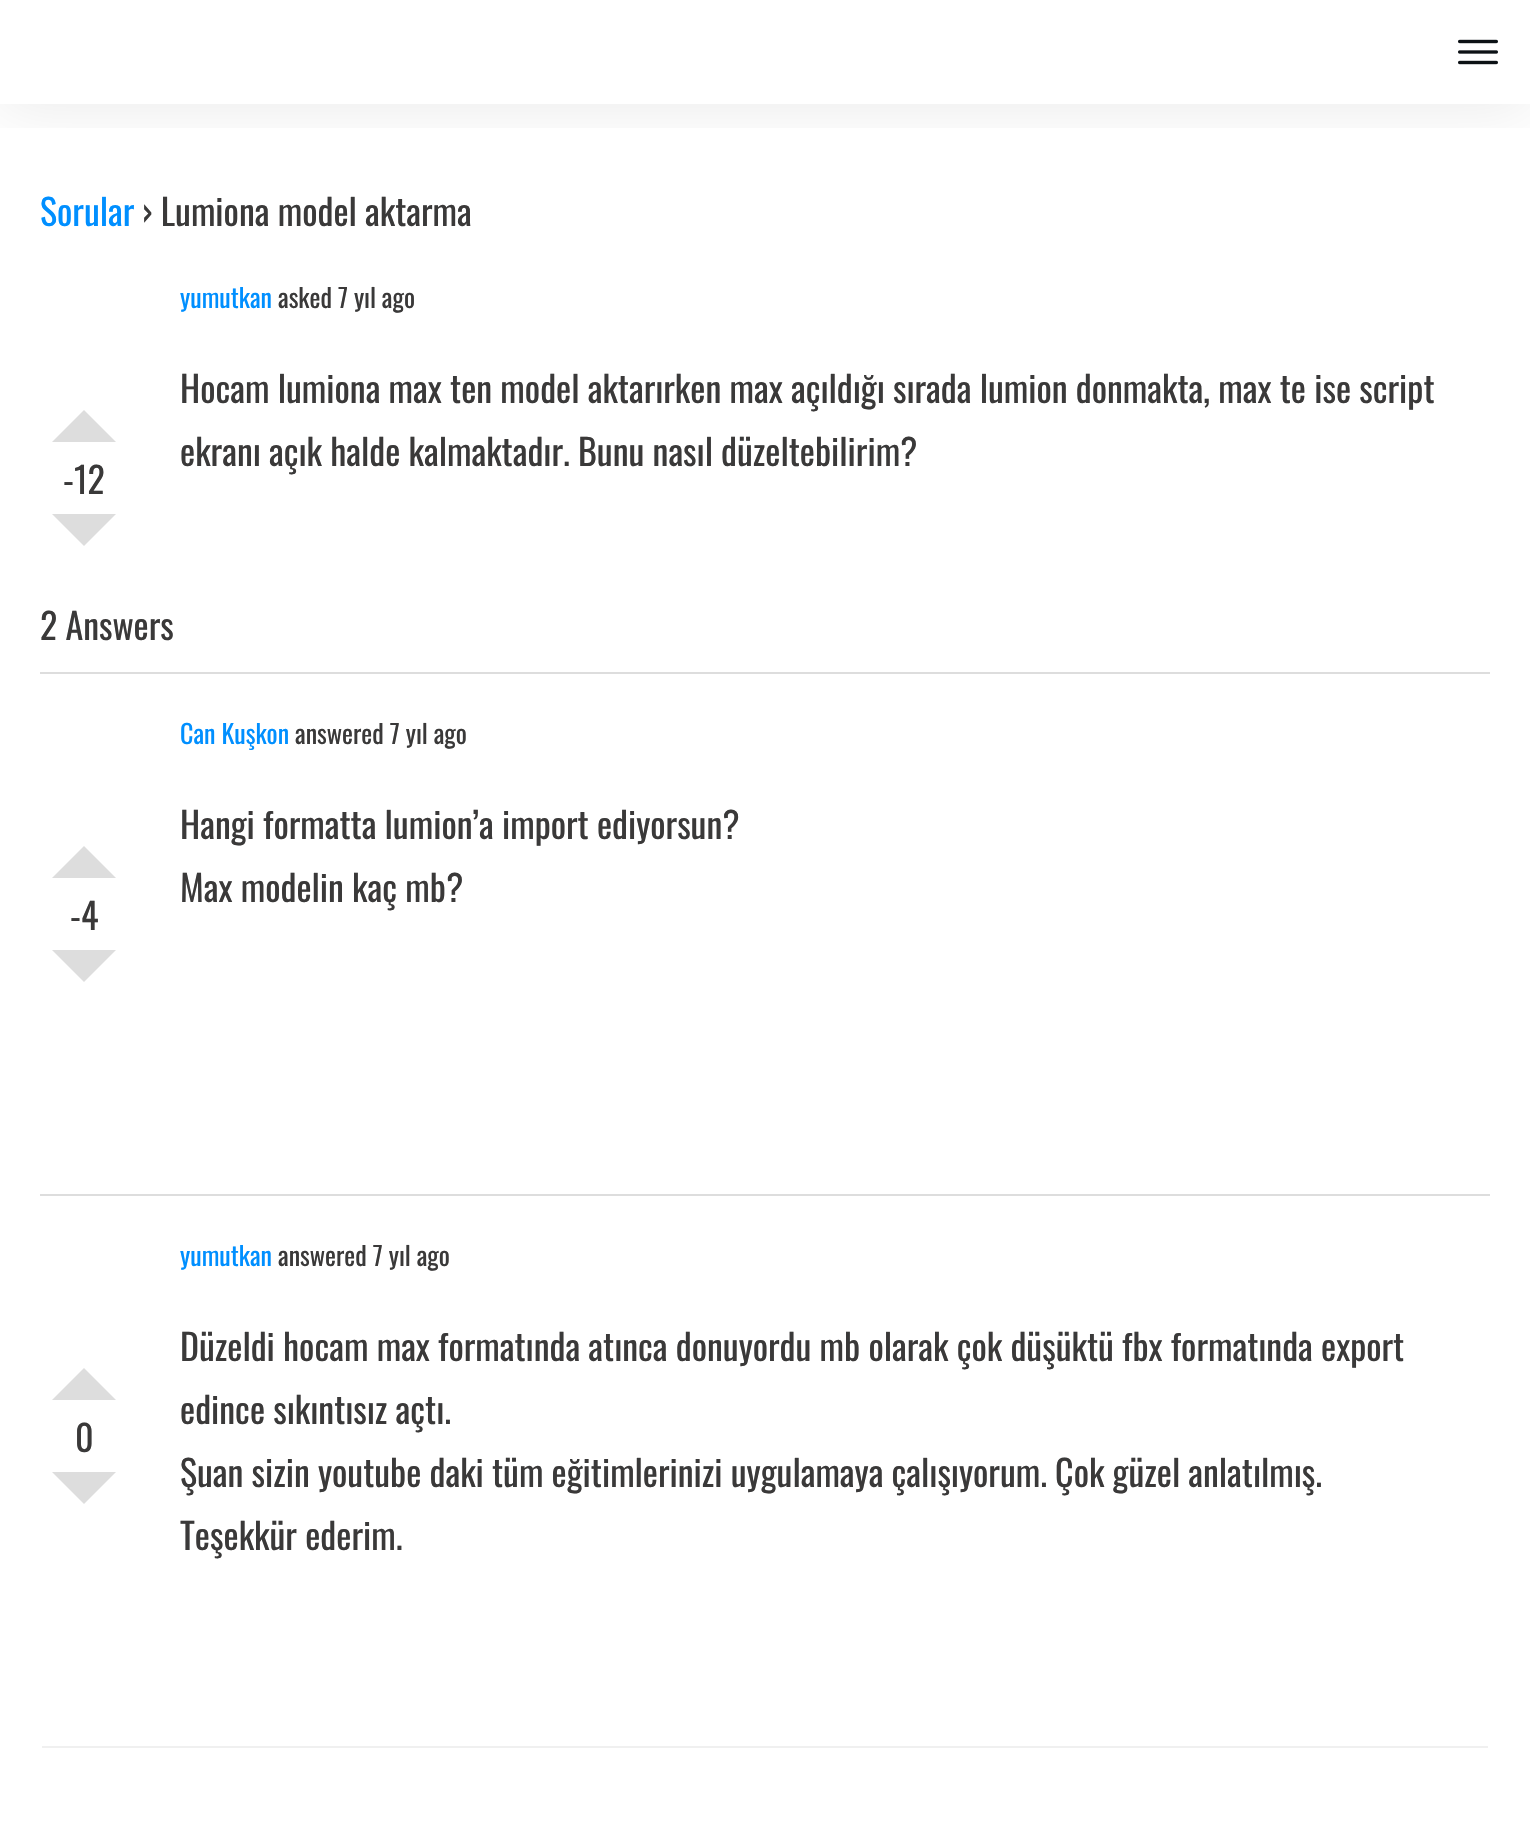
void draw(SkCanvas* c) {
SkPaint p;
p.setAntiAlias(true);
auto F=[&](const char* family, int weight, float size, bool italic = false){SkFontStyle style(weight, SkFontStyle::kNormal_Width,italic ? SkFontStyle::kItalic_Slant : SkFontStyle::kUpright_Slant);SkFont result(fontMgr->matchFamilyStyle(family, style), size);result.setSubpixel(true);return result;};
auto T=[&](const char* s, float x, float y, const SkFont& font){c->drawString(s, x, y, font, p);};
auto L=[&](const char* s, float x, float y, const SkFont& font, const SkPaint& ink, float letter, float word){std::vector<SkGlyphID> glyphs(font.countText(s, strlen(s), SkTextEncoding::kUTF8));std::vector<float> xs(glyphs.size());font.textToGlyphs(s, strlen(s), SkTextEncoding::kUTF8, glyphs);font.getXPos(glyphs, xs, x);float extra = 0;for (size_t i = 0; i < glyphs.size(); i++) {xs[i] += extra;extra += letter + word * (glyphs[i] == font.unicharToGlyph(' '));}c->drawTextBlob(SkTextBlob::MakeFromPosHGlyphs(glyphs, xs, y, font), 0, 0, ink);};
auto R=[&](float x, float y, float w, float h){c->drawRect(SkRect::MakeXYWH(x, y, w, h), p);};
auto I=[&](const char* path, float x, float y, float w, float h){auto image = SkImages::DeferredFromEncodedData(SkData::MakeFromFileName(path));c->drawImageRect(image, SkRect::MakeXYWH(x, y, w, h), SkSamplingOptions());};
auto P=[&](const char* data, bool evenOdd = false){SkPath result = *SkParsePath::FromSVGString(data);if (evenOdd) result.setFillType(SkPathFillType::kEvenOdd);return result;};
c->clear(0xffffffff);
c->save();
c->clipRect(SkRect::MakeXYWH(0,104,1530,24));
p.setColor(0x14000000);
p.setMaskFilter(SkMaskFilter::MakeBlur(kNormal_SkBlurStyle, 30));
c->drawRect(SkRect::MakeXYWH(0,4,1530,104),p);
p.setMaskFilter(nullptr);
c->restore();
I("1.png",1458,39,40,26);
auto f1 = F("Oswald",400,36);
p.setColor(0xff008fff);
T("Sorular",40,226,f1);
p.setColor(0xff3a3939);
T("› Lumiona model aktarma",142,226,f1);
auto f2 = F("Oswald",400,26);
p.setColor(0xff008fff);
T("yumutkan",180,308,f2);
p.setColor(0xff3a3939);
T("asked 7 yıl ago",278,308,f2);
T("Hocam lumiona max ten model aktarırken max açıldığı sırada lumion donmakta, max te ise script",180,403,f1);
T("ekranı açık halde kalmaktadır. Bunu nasıl düzeltebilirim?",180,466,f1);
p.setColor(0xffdddddd);
c->drawPath(P("M116 442h-64l32-32z"),p);
p.setColor(0xff3a3939);
T("-12",63,494,f1);
p.setColor(0xffdddddd);
c->drawPath(P("M52 514h64l-32 32z"),p);
p.setColor(0xff3a3939);
T("2 Answers",40,640,f1);
p.setColor(0xffdddddd);
R(40,672,1450,2);
p.setColor(0xff008fff);
T("Can Kuşkon",180,744,f2);
p.setColor(0xff3a3939);
T("answered 7 yıl ago",295,744,f2);
T("Hangi formatta lumion’a import ediyorsun?",180,839,f1);
T("Max modelin kaç mb?",180,902,f1);
p.setColor(0xffdddddd);
c->drawPath(P("M116 878h-64l32-32z"),p);
p.setColor(0xff3a3939);
T("-4",70,930,f1);
p.setColor(0xffdddddd);
c->drawPath(P("M52 950h64l-32 32z"),p);
R(40,1194,1450,2);
p.setColor(0xff008fff);
T("yumutkan",180,1266,f2);
p.setColor(0xff3a3939);
T("answered 7 yıl ago",278,1266,f2);
p.setColor(0xffdddddd);
c->drawPath(P("M116 1400h-64l32-32z"),p);
p.setColor(0xff3a3939);
T("0",75,1452,f1);
p.setColor(0xffdddddd);
c->drawPath(P("M52 1472h64l-32 32z"),p);
p.setColor(0xff3a3939);
T("Düzeldi hocam max formatında atınca donuyordu mb olarak çok düşüktü fbx formatında export",180,1361,f1);
T("edince sıkıntısız açtı.",180,1424,f1);
L("Şuan sizin youtube daki tüm eğitimlerinizi uygulamaya çalışıyorum. Çok güzel anlatılmış.",180,1487,f1,p,0,-.1);
T("Teşekkür ederim.",180,1550,f1);
p.setColor(0xfff0f0f0);
R(42,1746,1446,2);
}
